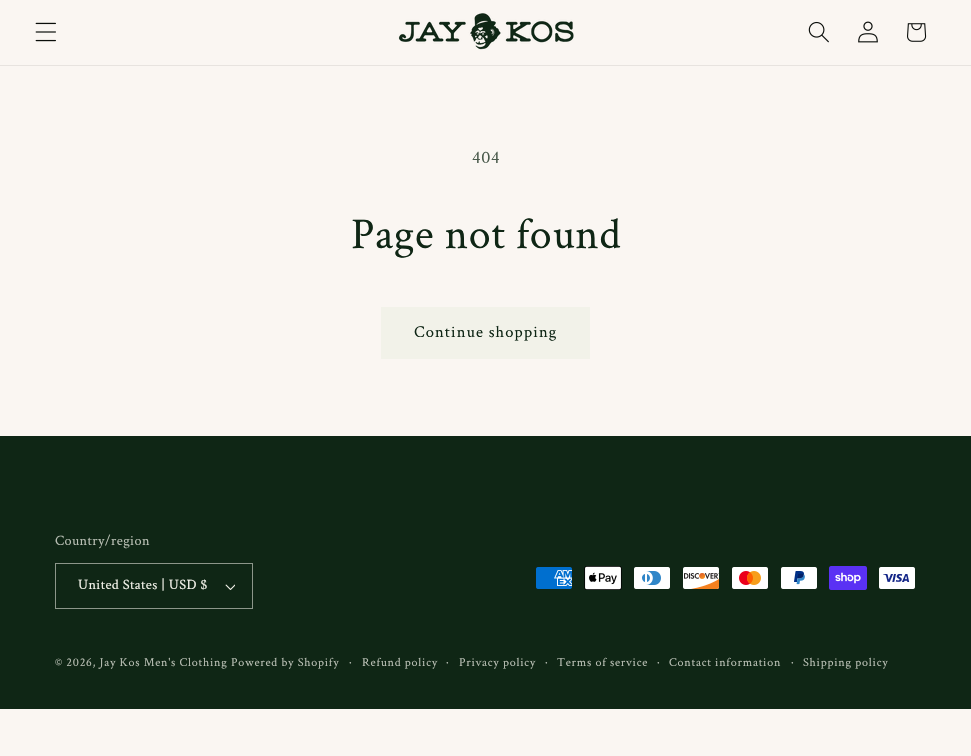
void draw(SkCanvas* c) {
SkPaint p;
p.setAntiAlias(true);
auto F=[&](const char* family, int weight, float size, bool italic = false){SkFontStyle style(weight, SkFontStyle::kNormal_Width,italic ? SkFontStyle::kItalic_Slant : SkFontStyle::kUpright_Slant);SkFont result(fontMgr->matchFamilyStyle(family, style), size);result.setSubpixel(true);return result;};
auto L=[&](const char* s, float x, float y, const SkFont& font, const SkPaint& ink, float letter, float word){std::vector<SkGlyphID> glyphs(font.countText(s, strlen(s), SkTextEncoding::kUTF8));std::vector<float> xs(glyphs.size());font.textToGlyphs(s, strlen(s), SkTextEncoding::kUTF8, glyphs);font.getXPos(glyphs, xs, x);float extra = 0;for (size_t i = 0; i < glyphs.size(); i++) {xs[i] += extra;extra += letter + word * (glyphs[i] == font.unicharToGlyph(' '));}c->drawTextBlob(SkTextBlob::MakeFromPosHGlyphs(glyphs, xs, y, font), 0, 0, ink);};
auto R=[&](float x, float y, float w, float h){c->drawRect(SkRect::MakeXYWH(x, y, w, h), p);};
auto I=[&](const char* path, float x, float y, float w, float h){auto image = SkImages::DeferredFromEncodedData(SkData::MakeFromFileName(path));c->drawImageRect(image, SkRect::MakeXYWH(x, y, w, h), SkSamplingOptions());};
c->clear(0xfffaf6f2);
p.setColor(0xffe7e3df);
R(0,65,971,1);
I("1.png",35,22,21,20);
I("2.png",398,13,176,37);
I("3.png",808,21,21,22);
I("4.png",858,21,20,22);
I("5.png",907,23,20,19);
auto f1 = F("Crimson Text",400,18);
p.setColor(0xff4a5a4c);
L("404",472,163,f1,p,.7,0);
auto f2 = F("Crimson Text",400,44);
p.setColor(0xff0f2615);
L("Page not found",351,248,f2,p,.7,0);
p.setColor(0xfff2f2e9);
R(381,307,209,52);
auto f3 = F("Crimson Text",400,16.5);
p.setColor(0xff0f2615);
L("Continue shopping",414,337,f3,p,1.1,0);
R(0,436,971,273);
auto f4 = F("Crimson Text",400,14.25);
p.setColor(0xffb9bfb4);
L("Country/region",55,545,f4,p,.4,0);
I("6.png",225,584,10,6);
p.setStroke(true);
p.setStrokeWidth(1);
p.setColor(0xff8c968a);
c->drawRect(SkRect::MakeXYWH(55.5,563.5,197,45),p);
p.setStroke(false);
p.setColor(0xfff2f2e9);
L("United States | USD $",78,589,f4,p,.4,0);
I("7.png",536,567,36,22);
I("8.png",584,566,38,24);
I("9.png",634,567,36,22);
I("10.png",683,567,36,22);
I("11.png",732,567,36,22);
I("12.png",781,567,36,22);
I("13.png",829,566,38,24);
I("14.png",879,567,36,22);
auto f5 = F("Crimson Text",400,12.1);
p.setColor(0xffb9bfb4);
L("© 2026, Jay Kos Men's Clothing Powered by Shopify",55,666,f5,p,.75,0);
auto f6 = F("Crimson Text",400,13);
L("·",349,666,f6,p,.75,0);
L("Refund policy",362,666,f5,p,.75,0);
L("·",446,666,f6,p,.75,0);
L("Privacy policy",459,666,f5,p,.75,0);
L("·",545,666,f6,p,.75,0);
L("Terms of service",557,666,f5,p,.75,0);
L("·",657,666,f6,p,.75,0);
L("Contact information",669,666,f5,p,.75,0);
L("·",791,666,f6,p,.75,0);
L("Shipping policy",803,666,f5,p,.75,0);
}
